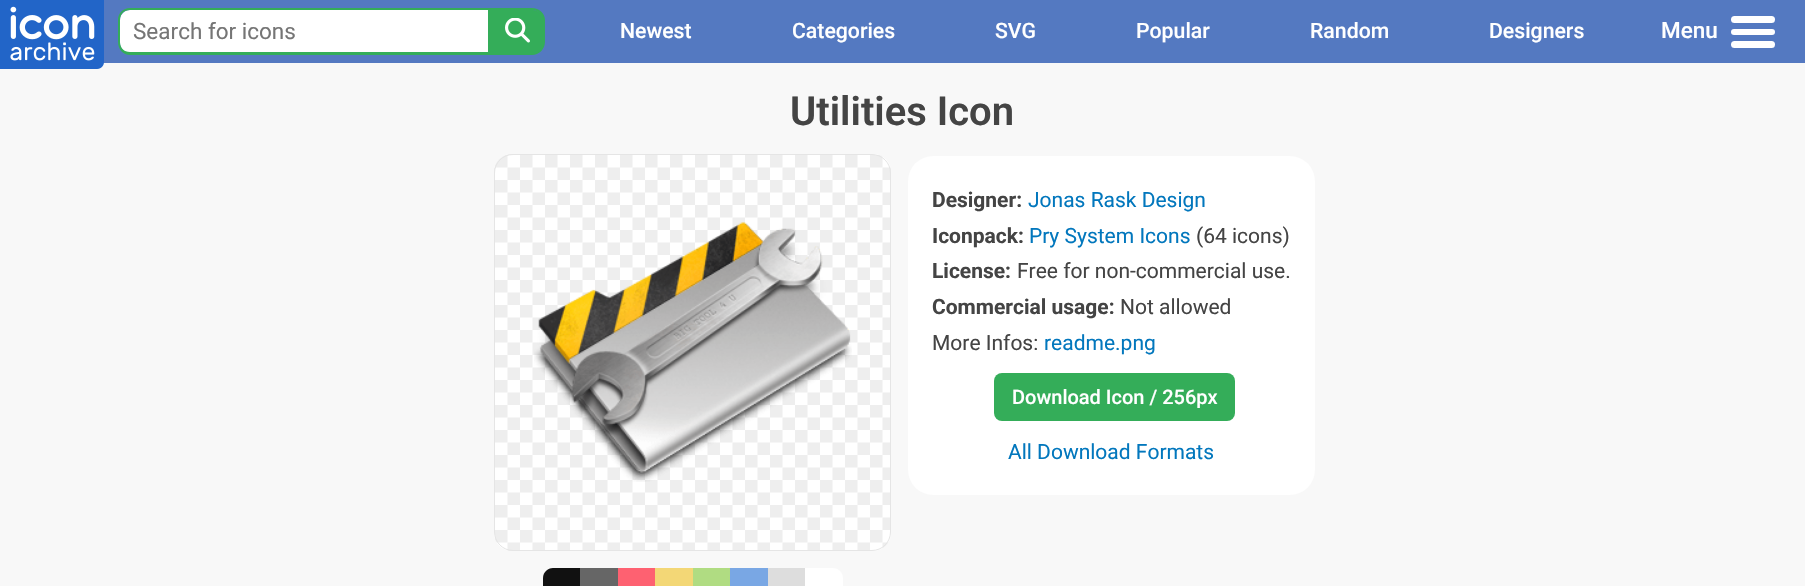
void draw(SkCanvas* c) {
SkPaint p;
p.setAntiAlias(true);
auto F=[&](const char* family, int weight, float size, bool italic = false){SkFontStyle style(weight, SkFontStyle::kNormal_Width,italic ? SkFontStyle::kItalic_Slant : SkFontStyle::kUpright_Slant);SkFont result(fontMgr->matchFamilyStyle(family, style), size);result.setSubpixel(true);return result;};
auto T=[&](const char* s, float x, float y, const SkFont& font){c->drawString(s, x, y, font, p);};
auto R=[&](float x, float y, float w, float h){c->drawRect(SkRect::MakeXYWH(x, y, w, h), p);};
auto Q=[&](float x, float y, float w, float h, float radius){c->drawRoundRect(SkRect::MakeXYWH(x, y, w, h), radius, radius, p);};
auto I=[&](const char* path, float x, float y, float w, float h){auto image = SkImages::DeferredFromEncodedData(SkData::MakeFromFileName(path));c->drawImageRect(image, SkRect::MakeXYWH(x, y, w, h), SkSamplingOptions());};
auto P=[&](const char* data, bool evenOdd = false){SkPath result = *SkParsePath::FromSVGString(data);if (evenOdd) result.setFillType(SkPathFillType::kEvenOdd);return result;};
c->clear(0xfff8f8f8);
p.setColor(0xff5479c1);
R(103,0,1702,63);
I("1.png",0,0,104,69);
p.setColor(0xffffffff);
c->drawPath(P("M130 10h358v43h-358c-5.5 0-10-4.5-10-10v-23c0-5.5 4.5-10 10-10z"),p);
p.setColor(0xff34ad59);
c->drawPath(P("M130 8h358v47h-358c-7 0-12-6-12-13v-22c0-7 5-12 12-12zm0 2h358v42h-358c-6 0-10-4-10-10v-22c0-6 4-10 10-10z",true),p);
auto f1 = F("Roboto",400,22.5);
p.setColor(0xff757575);
T("Search for icons",133,39,f1);
p.setColor(0xff34ad59);
c->drawPath(P("M488 10h45c5.5 0 10 4.5 10 10v23c0 5.5-4.5 10-10 10h-45z"),p);
c->drawPath(P("M488 8h44c7 0 13 5 13 12v22c0 7-6 13-13 13h-44zm0 2h44c6 0 10 4 10 10v22c0 6-4 10-10 10h-44z",true),p);
I("2.png",505,18,25,25);
auto f2 = F("Roboto",500,21.25);
p.setColor(0xffffffff);
T("Newest",620,38,f2);
T("Categories",792,38,f2);
T("SVG",995,38,f2);
T("Popular",1136,38,f2);
T("Random",1310,38,f2);
T("Designers",1489,38,f2);
auto f3 = F("Roboto",500,22.5);
T("Menu",1661,38,f3);
Q(1731,16,44,7,3.5);
Q(1731,29,44,6,3);
Q(1731,41,44,7,3.5);
auto f4 = F("Roboto",600,40);
p.setColor(0xff444444);
T("Utilities Icon",790,125,f4);
I("3.png",494,154,397,397);
p.setStroke(true);
p.setStrokeWidth(1);
p.setColor(0xffe5e5e5);
c->drawRoundRect(SkRect::MakeXYWH(494.5,154.5,396,396),18.5,18.5,p);
I("4.png",534,222,318,260);
p.setStroke(false);
p.setColor(0xff111111);
c->drawPath(P("M553 568h27v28h-27c-5.5 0-10-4.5-10-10v-8c0-5.5 4.5-10 10-10z"),p);
p.setColor(0xff666666);
R(580,568,38,18);
p.setColor(0xfffe6171);
R(618,568,37,18);
p.setColor(0xfff3d776);
R(655,568,38,18);
p.setColor(0xffb0dc82);
R(693,568,37,18);
p.setColor(0xff79a7e4);
R(730,568,38,18);
p.setColor(0xffdddddd);
R(768,568,37,18);
p.setColor(0xffffffff);
c->drawPath(P("M805 568h28c5.5 0 10 4.5 10 10v8c0 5.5-4.5 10-10 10h-28z"),p);
Q(908,156,407,339,25);
auto f5 = F("Roboto",700,21);
p.setColor(0xff444444);
T("Designer:",932,207,f5);
auto f6 = F("Roboto",400,21);
p.setColor(0xff0277bd);
T("Jonas Rask Design",1028,207,f6);
p.setColor(0xff444444);
T("Iconpack:",932,243,f5);
p.setColor(0xff0277bd);
T("Pry System Icons",1029,243,f6);
p.setColor(0xff444444);
T("(64 icons)",1196,243,f6);
T("License:",932,278,f5);
T("Free for non-commercial use.",1017,278,f6);
T("Commercial usage:",932,314,f5);
T("Not allowed",1120,314,f6);
T("More Infos:",932,350,f6);
p.setColor(0xff0277bd);
T("readme.png",1044,350,f6);
p.setColor(0xff34ad59);
Q(994,373,241,48,8);
auto f7 = F("Roboto",500,20);
p.setColor(0xffffffff);
T("Download Icon / 256px",1012,404,f7);
p.setColor(0xff0277bd);
T("All Download Formats",1008,459,f6);
}
